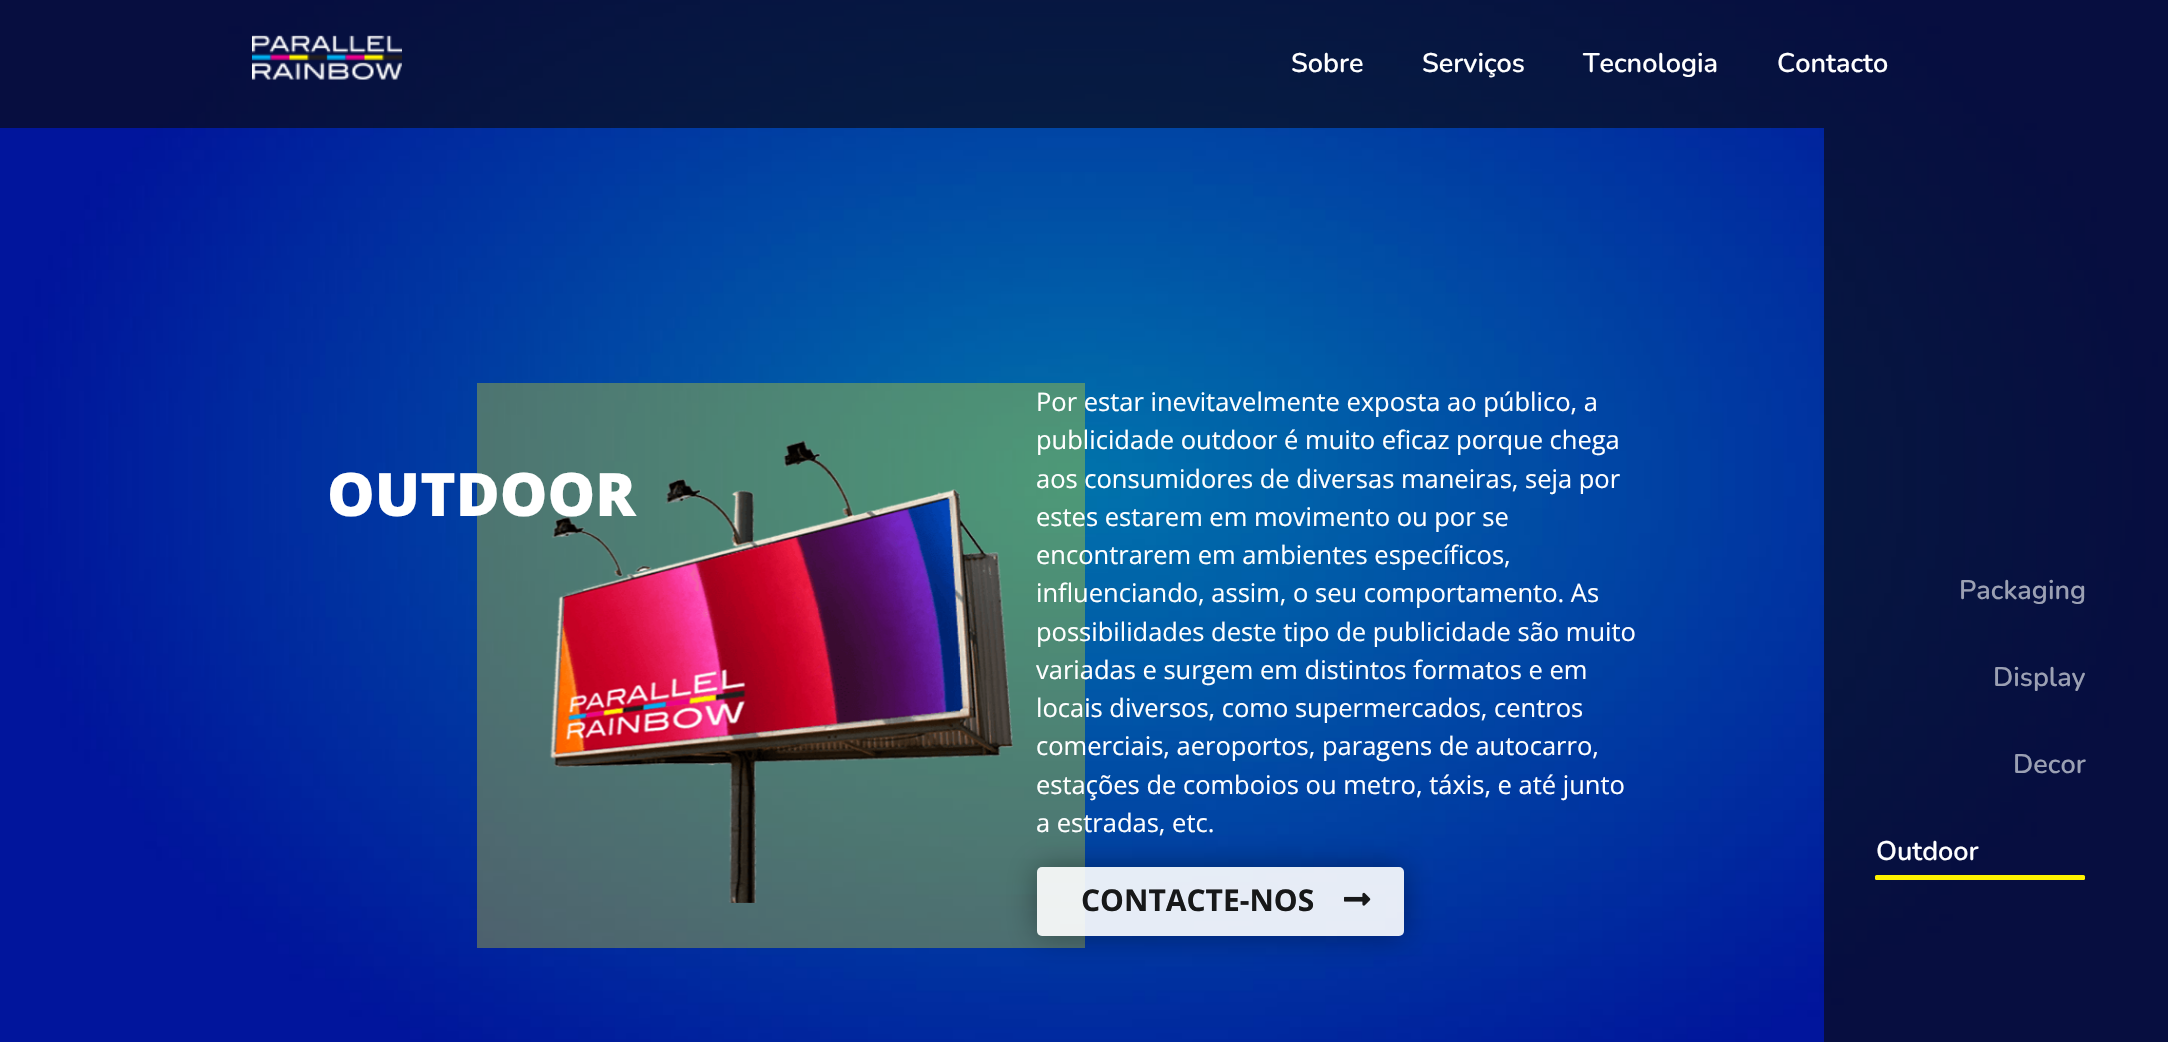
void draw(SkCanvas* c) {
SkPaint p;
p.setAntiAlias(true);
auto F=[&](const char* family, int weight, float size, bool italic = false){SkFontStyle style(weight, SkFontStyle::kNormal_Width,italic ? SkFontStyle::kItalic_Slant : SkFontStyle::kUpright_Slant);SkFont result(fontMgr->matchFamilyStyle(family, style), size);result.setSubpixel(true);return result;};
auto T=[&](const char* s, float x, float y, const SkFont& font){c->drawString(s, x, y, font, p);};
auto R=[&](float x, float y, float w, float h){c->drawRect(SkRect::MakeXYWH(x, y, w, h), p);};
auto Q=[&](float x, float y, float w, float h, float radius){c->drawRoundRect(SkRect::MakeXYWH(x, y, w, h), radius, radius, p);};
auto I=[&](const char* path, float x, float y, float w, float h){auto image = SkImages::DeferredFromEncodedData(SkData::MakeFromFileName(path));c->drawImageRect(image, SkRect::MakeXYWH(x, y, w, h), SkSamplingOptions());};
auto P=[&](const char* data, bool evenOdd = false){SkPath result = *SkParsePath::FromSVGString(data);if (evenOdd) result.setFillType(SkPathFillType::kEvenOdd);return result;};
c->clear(0xffffffff);
I("1.png",0,0,2168,1042);
p.setColor(0xb3080a18);
R(0,0,2168,128);
I("2.png",252,35,150,45);
auto f1 = F("Nunito",600,27);
p.setColor(0xffffffff);
T("Sobre",1291,72,f1);
T("Serviços",1422,72,f1);
T("Tecnologia",1583,72,f1);
T("Contacto",1777,72,f1);
p.setColor(0x4dfff200);
R(477,383,608,565);
I("3.png",549,440,465,463);
auto f2 = F("Open Sans",800,60);
p.setColor(0xffffffff);
T("OUTDOOR",327,516,f2);
auto f3 = F("Open Sans",400,25.5);
T("Por estar inevitavelmente exposta ao público, a",1036,411,f3);
T("publicidade outdoor é muito eficaz porque chega",1036,449,f3);
T("aos consumidores de diversas maneiras, seja por",1036,488,f3);
T("estes estarem em movimento ou por se",1036,526,f3);
T("encontrarem em ambientes específicos,",1036,564,f3);
T("influenciando, assim, o seu comportamento. As",1036,602,f3);
T("possibilidades deste tipo de publicidade são muito",1036,641,f3);
T("variadas e surgem em distintos formatos e em",1036,679,f3);
T("locais diversos, como supermercados, centros",1036,717,f3);
T("comerciais, aeroportos, paragens de autocarro,",1036,755,f3);
T("estações de comboios ou metro, táxis, e até junto",1036,794,f3);
T("a estradas, etc.",1036,832,f3);
c->save();
c->clipPath(P("M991 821h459v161h-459zm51 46h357c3 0 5 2 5 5v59c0 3-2 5-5 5h-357c-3 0-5-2-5-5v-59c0-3 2-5 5-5z",true),true);
p.setColor(0x5c000000);
p.setMaskFilter(SkMaskFilter::MakeBlur(kNormal_SkBlurStyle, 15));
c->drawRoundRect(SkRect::MakeXYWH(1037,867,367,69),5,5,p);
p.setMaskFilter(nullptr);
c->restore();
p.setColor(0xe6ffffff);
Q(1037,867,367,69,5);
auto f4 = F("Open Sans",700,30);
p.setColor(0xff171819);
T("CONTACTE-NOS",1081,911,f4);
I("4.png",1344,892,27,14);
p.setColor(0xb3080a18);
R(1824,128,344,914);
p.setColor(0xff9ba0b3);
T("Packaging",1959,599,f1);
T("Display",1993,686,f1);
T("Decor",2013,773,f1);
p.setColor(0xffffffff);
T("Outdoor",1876,860,f1);
p.setColor(0xfffff200);
Q(1875,875,210,5,1.5);
}
